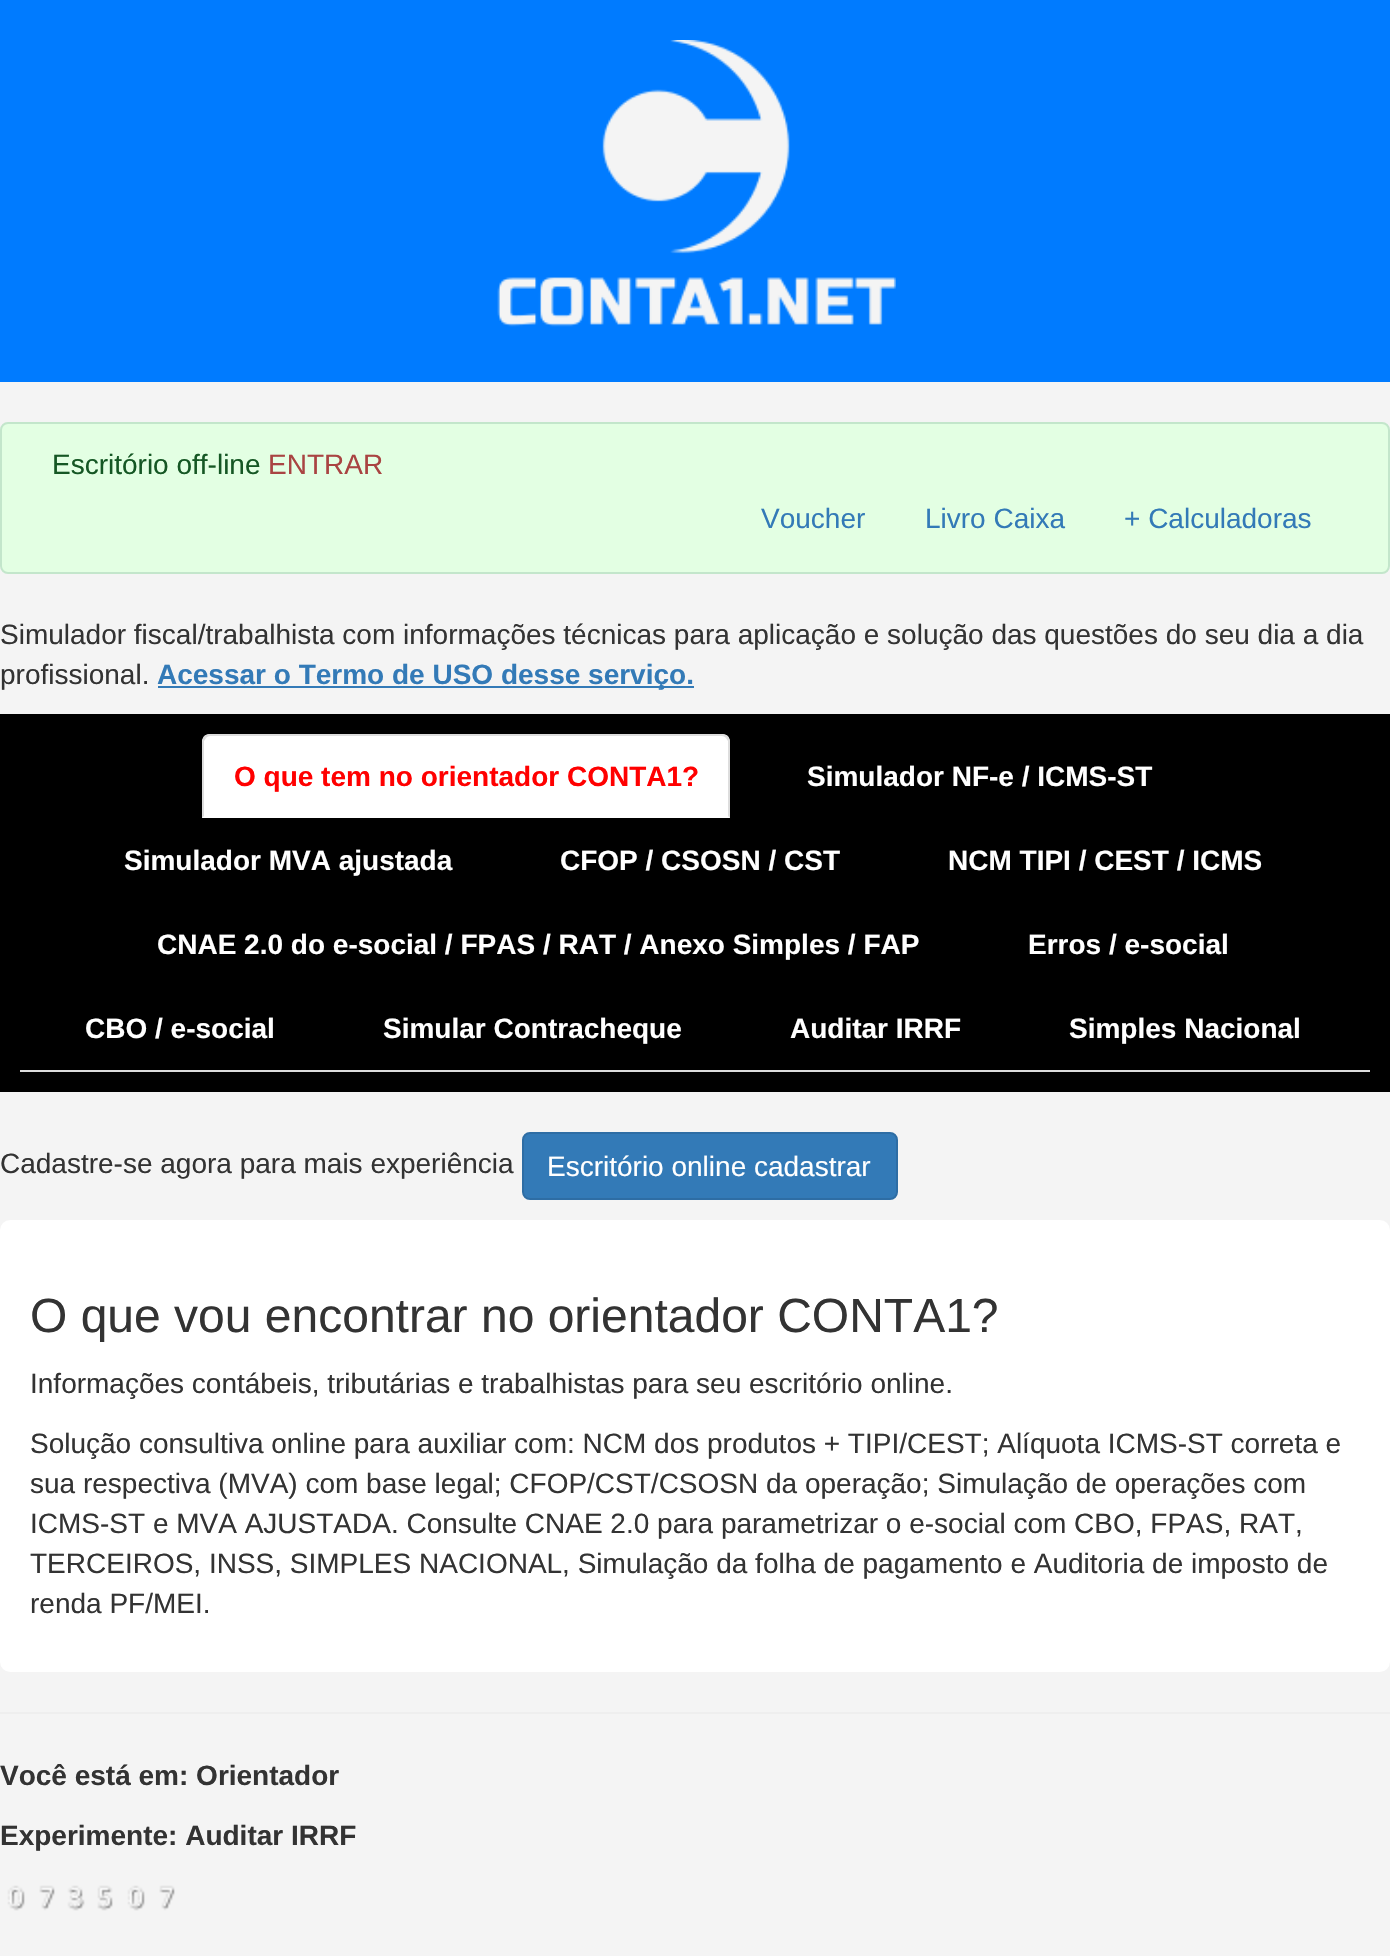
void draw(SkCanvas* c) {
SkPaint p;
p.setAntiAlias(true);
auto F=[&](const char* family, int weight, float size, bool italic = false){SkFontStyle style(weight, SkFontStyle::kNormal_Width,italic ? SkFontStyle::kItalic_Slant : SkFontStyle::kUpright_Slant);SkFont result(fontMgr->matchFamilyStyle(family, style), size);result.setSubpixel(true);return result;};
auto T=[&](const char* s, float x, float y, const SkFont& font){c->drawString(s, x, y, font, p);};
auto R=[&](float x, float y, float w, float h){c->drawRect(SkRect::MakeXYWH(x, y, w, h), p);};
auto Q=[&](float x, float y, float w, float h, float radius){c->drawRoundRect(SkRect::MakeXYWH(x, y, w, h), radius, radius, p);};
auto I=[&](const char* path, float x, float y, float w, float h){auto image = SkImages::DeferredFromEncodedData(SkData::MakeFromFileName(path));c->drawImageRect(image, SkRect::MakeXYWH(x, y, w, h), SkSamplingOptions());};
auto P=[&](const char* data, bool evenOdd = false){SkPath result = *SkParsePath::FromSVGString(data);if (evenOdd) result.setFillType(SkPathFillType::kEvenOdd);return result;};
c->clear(0xfff4f4f4);
p.setColor(0xff007bff);
R(0,0,1390,382);
I("1.png",497,40,399,287);
p.setColor(0xffe3ffe3);
c->drawRoundRect(SkRect::MakeXYWH(1,423,1388,150),7,7,p);
p.setStroke(true);
p.setStrokeWidth(2);
p.setColor(0xffc3e6cb);
c->drawRoundRect(SkRect::MakeXYWH(1,423,1388,150),7,7,p);
auto f1 = F("Liberation Sans",400,28);
p.setStroke(false);
p.setColor(0xff155724);
T("Escritório off-line",52,474,f1);
p.setColor(0xffa94442);
T("ENTRAR",268,474,f1);
p.setColor(0xff337ab7);
T("Voucher",761,528,f1);
T("Livro Caixa",925,528,f1);
T("+ Calculadoras",1124,528,f1);
p.setColor(0xff333333);
T("Simulador fiscal/trabalhista com informações técnicas para aplicação e solução das questões do seu dia a dia",0,644,f1);
T("profissional.",0,684,f1);
p.setColor(0xff337ab7);
R(158,686,536,2);
auto f2 = F("Liberation Sans",700,28);
T("Acessar o Termo de USO desse serviço.",157,684,f2);
p.setColor(0xff000000);
R(0,714,1390,378);
p.setColor(0xffdddddd);
R(20,1070,1350,2);
p.setColor(0xffffffff);
c->drawPath(P("M210 734h512c4.5 0 8 3.5 8 8v76h-528v-76c0-4.5 3.5-8 8-8z"),p);
p.setColor(0xffdddddd);
c->drawPath(P("M210 734c-2 0-4 1-6 2l2 2c1-1 2-2 4-2h512c2 0 3 1 4 2l2-2c-2-1-4-2-6-2z"),p);
c->drawPath(P("M730 818v-76c0-2-1-4-2-6l-2 2l2 3v75z"),p);
c->drawPath(P("M202 818l2-2v-75l2-3l-2-2c-1 2-2 4-2 6z"),p);
p.setColor(0xffff0000);
T("O que tem no orientador CONTA1?",234,786,f2);
p.setColor(0xffffffff);
T("Simulador NF-e / ICMS-ST",807,786,f2);
T("Simulador MVA ajustada",124,870,f2);
T("CFOP / CSOSN / CST",560,870,f2);
T("NCM TIPI / CEST / ICMS",948,870,f2);
T("CNAE 2.0 do e-social / FPAS / RAT / Anexo Simples / FAP",157,954,f2);
T("Erros / e-social",1028,954,f2);
T("CBO / e-social",85,1038,f2);
T("Simular Contracheque",383,1038,f2);
T("Auditar IRRF",790,1038,f2);
T("Simples Nacional",1069,1038,f2);
p.setColor(0xff333333);
T("Cadastre-se agora para mais experiência",0,1173,f1);
p.setColor(0xff337ab7);
c->drawRoundRect(SkRect::MakeXYWH(523,1133,374,66),7,7,p);
p.setStroke(true);
p.setColor(0xff2e6da4);
c->drawRoundRect(SkRect::MakeXYWH(523,1133,374,66),7,7,p);
p.setStroke(false);
p.setColor(0xffffffff);
T("Escritório online cadastrar",547,1176,f1);
Q(0,1220,1390,452,10);
auto f3 = F("Liberation Sans",400,48);
p.setColor(0xff333333);
T("O que vou encontrar no orientador CONTA1?",30,1332,f3);
T("Informações contábeis, tributárias e trabalhistas para seu escritório online.",30,1393,f1);
T("Solução consultiva online para auxiliar com: NCM dos produtos + TIPI/CEST; Alíquota ICMS-ST correta e",30,1453,f1);
T("sua respectiva (MVA) com base legal; CFOP/CST/CSOSN da operação; Simulação de operações com",30,1493,f1);
T("ICMS-ST e MVA AJUSTADA. Consulte CNAE 2.0 para parametrizar o e-social com CBO, FPAS, RAT,",30,1533,f1);
T("TERCEIROS, INSS, SIMPLES NACIONAL, Simulação da folha de pagamento e Auditoria de imposto de",30,1573,f1);
T("renda PF/MEI.",30,1613,f1);
p.setColor(0xffeeeeee);
R(0,1712,1390,2);
p.setColor(0xff333333);
T("Você está em: Orientador",0,1785,f2);
T("Experimente: Auditar IRRF",0,1845,f2);
I("2.png",7,1885,168,26);
}
